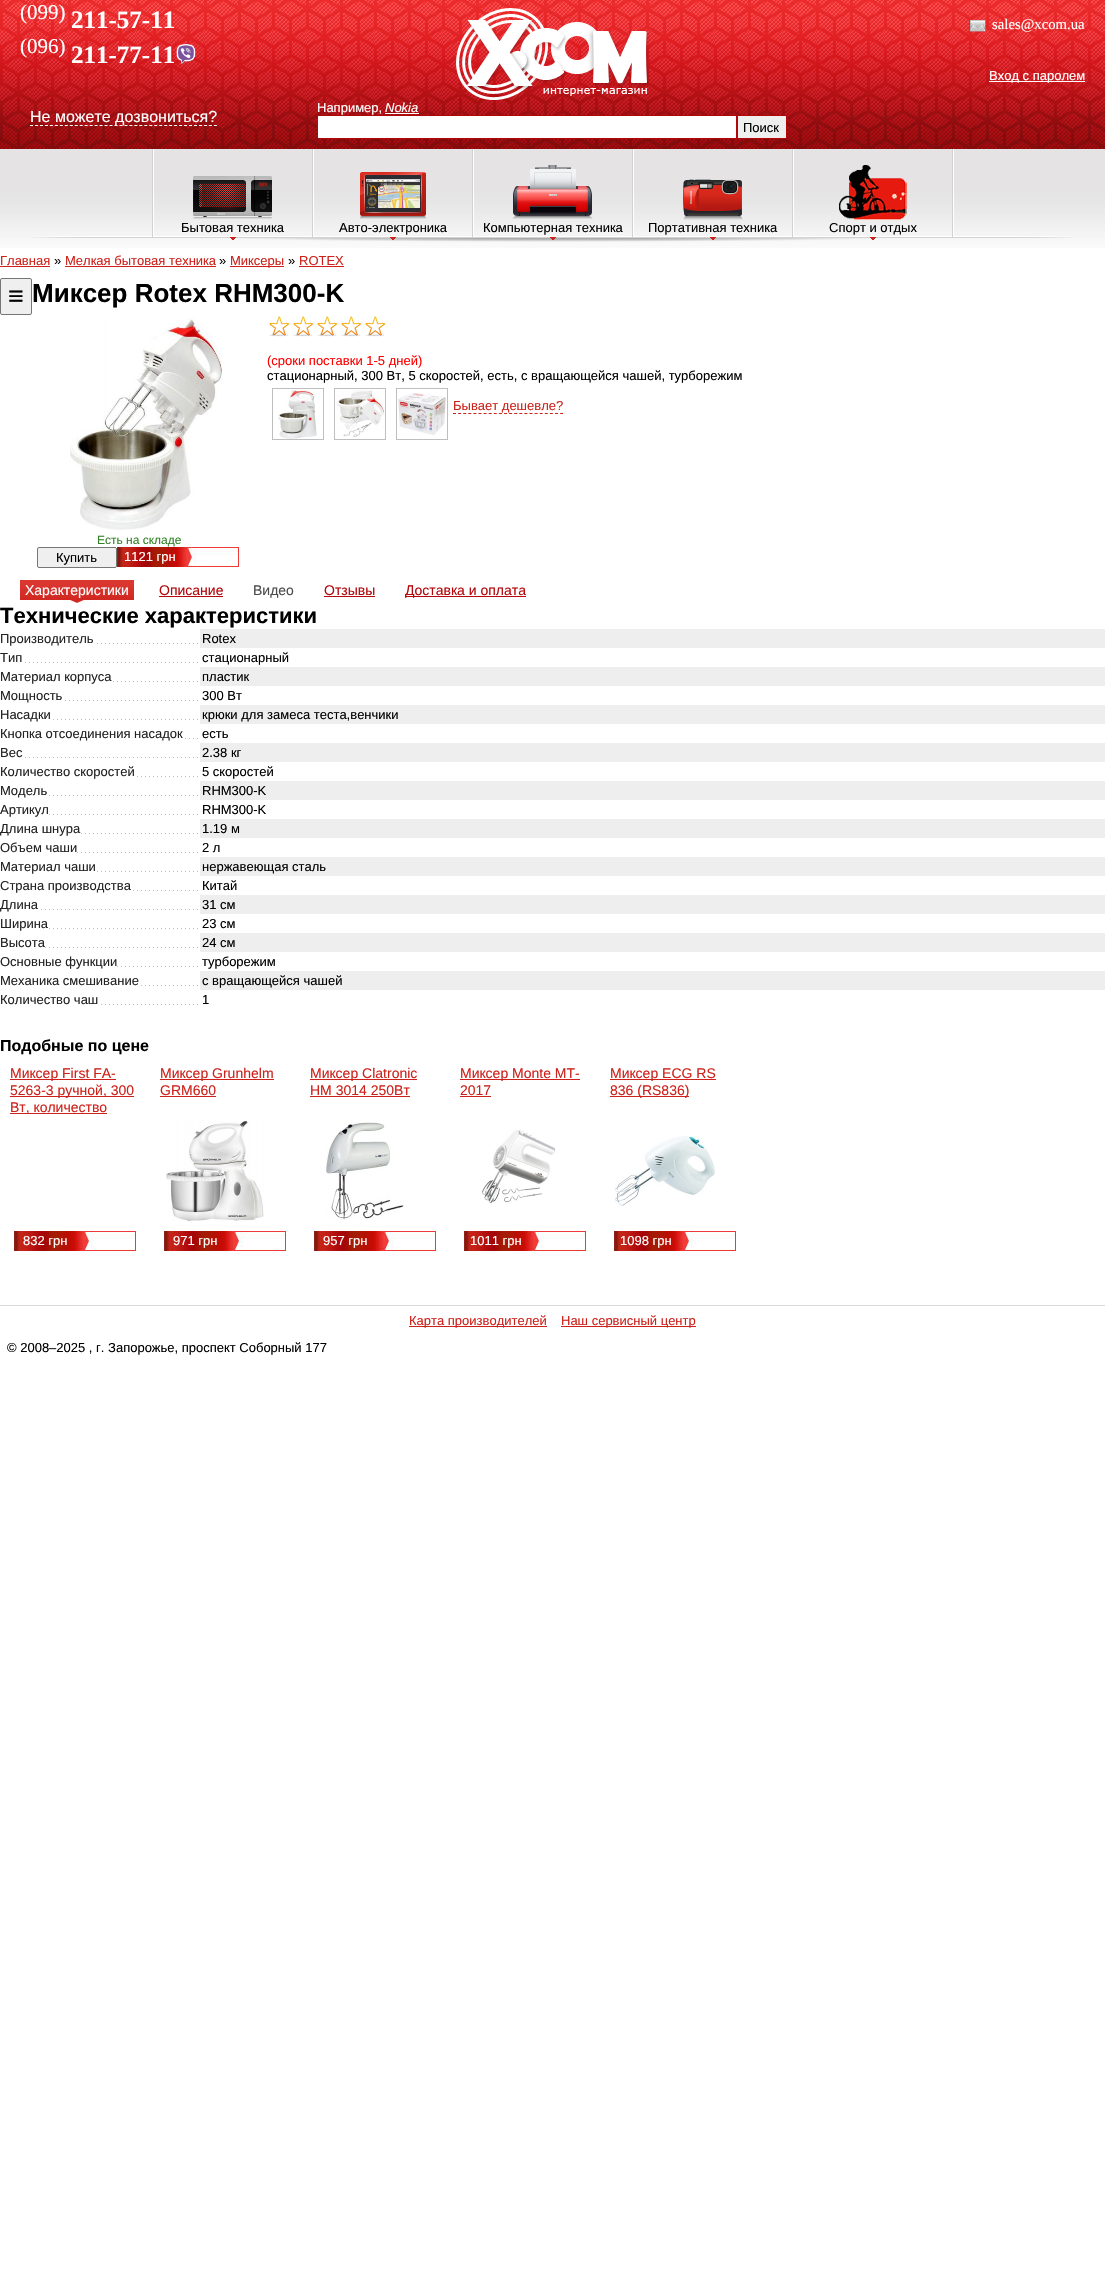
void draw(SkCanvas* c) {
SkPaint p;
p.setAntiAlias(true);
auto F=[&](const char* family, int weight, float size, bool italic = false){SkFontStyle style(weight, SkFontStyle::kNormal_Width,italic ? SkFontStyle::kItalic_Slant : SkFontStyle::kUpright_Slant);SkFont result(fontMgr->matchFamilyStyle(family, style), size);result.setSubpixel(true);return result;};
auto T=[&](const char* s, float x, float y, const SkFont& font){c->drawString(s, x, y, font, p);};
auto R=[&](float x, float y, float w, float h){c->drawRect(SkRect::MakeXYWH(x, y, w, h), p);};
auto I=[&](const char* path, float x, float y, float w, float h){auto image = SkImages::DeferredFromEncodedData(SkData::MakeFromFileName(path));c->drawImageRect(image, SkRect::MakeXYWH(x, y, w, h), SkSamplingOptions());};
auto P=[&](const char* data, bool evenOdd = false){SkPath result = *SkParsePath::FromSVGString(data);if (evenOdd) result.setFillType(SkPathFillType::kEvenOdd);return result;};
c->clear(0xffffffff);
I("1.png",0,0,1105,248);
I("2.png",456,8,194,92);
auto f1 = F("Liberation Serif",400,21);
p.setColor(0xffffffff);
T("(099)",20,19,f1);
auto f2 = F("Liberation Serif",700,25);
T("211-57-11",71,28,f2);
T("(096)",20,53,f1);
T("211-77-11",71,63,f2);
I("3.png",176,44,20,20);
I("4.png",970,20,16,12);
auto f3 = F("Liberation Serif",400,14.75);
T("sales@xcom.ua",992,29,f3);
R(989,81,96,1);
auto f4 = F("Liberation Sans",400,13);
T("Вход с паролем",989,80,f4);
T("Например,",317,112,f4);
auto f5 = F("Liberation Sans",400,13,true);
T("Nokia",385,112,f5);
R(385,113,34,1);
c->drawRect(SkRect::MakeXYWH(317.5,115.5,419,23),p);
p.setStroke(true);
p.setStrokeWidth(1);
p.setColor(0xffb1070a);
c->drawRect(SkRect::MakeXYWH(317.5,115.5,419,23),p);
p.setStroke(false);
p.setColor(0xffefefef);
c->drawRect(SkRect::MakeXYWH(737.5,115.5,49,23),p);
p.setStroke(true);
p.setColor(0xffb1070a);
c->drawRect(SkRect::MakeXYWH(737.5,115.5,49,23),p);
p.setStroke(false);
p.setColor(0xff000000);
T("Поиск",743,132,f4);
p.setStroke(true);
p.setColor(0xffffffff);
p.setPathEffect(SkDashPathEffect::Make({{3,1.97f}}, 0));
c->drawPath(P("M30 125.5h187"),p);
p.setPathEffect(nullptr);
auto f6 = F("Liberation Sans",400,16);
p.setStroke(false);
T("Не можете дозвониться?",30,122,f6);
I("5.png",240,238,631,4);
I("6.png",30,149,123,89);
I("7.png",153,149,160,91);
I("8.png",193,176,80,43);
p.setColor(0xff000000);
T("Бытовая техника",181,232,f4);
I("9.png",313,149,160,91);
I("10.png",360,172,67,47);
T("Авто-электроника",339,232,f4);
I("11.png",473,149,160,91);
I("12.png",512,165,81,54);
T("Компьютерная техника",483,232,f4);
I("13.png",633,149,160,91);
I("14.png",683,179,60,41);
T("Портативная техника",648,232,f4);
I("15.png",793,149,160,91);
I("16.png",839,165,68,55);
T("Спорт и отдых",829,232,f4);
I("17.png",953,149,122,89);
p.setColor(0xffcd221b);
T("Главная",0,265,f4);
R(0,266,50,1);
p.setColor(0xff000000);
T("»",54,265,f4);
p.setColor(0xffcd221b);
T("Мелкая бытовая техника",65,265,f4);
R(65,266,151,1);
p.setColor(0xff000000);
T("»",219,265,f4);
p.setColor(0xffcd221b);
R(230,266,54,1);
T("Миксеры",230,265,f4);
p.setColor(0xff000000);
T("»",288,265,f4);
p.setColor(0xffcd221b);
T("ROTEX",299,265,f4);
R(299,266,45,1);
p.setColor(0xffefefef);
c->drawRoundRect(SkRect::MakeXYWH(.5,278.5,31,36),1.5,1.5,p);
p.setStroke(true);
p.setColor(0xff767676);
c->drawRoundRect(SkRect::MakeXYWH(.5,278.5,31,36),1.5,1.5,p);
auto f7 = F("Liberation Sans",400,27);
p.setStroke(false);
p.setColor(0xff000000);
T("≡",8,305,f7);
auto f8 = F("Liberation Sans",700,26);
T("Миксер Rotex RHM300-K",32,302,f8);
I("18.png",269,316,21,21);
I("18.png",293,316,21,21);
I("18.png",317,316,21,21);
I("18.png",341,316,21,21);
I("18.png",365,316,21,21);
p.setColor(0xffff0000);
T("(сроки поставки 1-5 дней)",267,365,f4);
p.setColor(0xff000000);
T("стационарный, 300 Вт, 5 скоростей, есть, с вращающейся чашей, турборежим",267,380,f4);
p.setStroke(true);
p.setColor(0xffbfbebe);
c->drawRect(SkRect::MakeXYWH(272.5,388.5,51,51),p);
I("19.png",278,389,39,50);
c->drawRect(SkRect::MakeXYWH(334.5,388.5,51,51),p);
I("20.png",336,390,49,47);
c->drawRect(SkRect::MakeXYWH(396.5,388.5,51,51),p);
I("21.png",397,393,49,43);
p.setStroke(false);
p.setColor(0xffcd221b);
T("Бывает дешевле?",453,410,f4);
p.setStroke(true);
p.setPathEffect(SkDashPathEffect::Make({{3,2.1f}}, 0));
c->drawPath(P("M453 413.5h110"),p);
p.setPathEffect(nullptr);
I("22.png",70,318,152,212);
auto f9 = F("Liberation Sans",400,12);
p.setStroke(false);
p.setColor(0xff318226);
T("Есть на складе",97,544,f9);
I("23.png",117,547,122,20);
p.setColor(0xffefefef);
c->drawRoundRect(SkRect::MakeXYWH(37.5,547.5,79,20),1.5,1.5,p);
p.setStroke(true);
p.setColor(0xff767676);
c->drawRoundRect(SkRect::MakeXYWH(37.5,547.5,79,20),1.5,1.5,p);
p.setStroke(false);
p.setColor(0xff000000);
T("Купить",56,562,f4);
p.setColor(0xffffffff);
T("1121 грн",124,561,f4);
I("24.png",20,580,114,20);
I("25.png",70,596,14,7);
auto f10 = F("Liberation Sans",400,14);
T("Характеристики",25,595,f10);
p.setColor(0xffb5080c);
T("Описание",159,595,f10);
R(159,596,64,1);
p.setColor(0xff4b4b4b);
T("Видео",253,595,f10);
p.setColor(0xffb5080c);
T("Отзывы",324,595,f10);
R(324,596,51,1);
R(405,596,121,1);
T("Доставка и оплата",405,595,f10);
auto f11 = F("Liberation Sans",700,22);
p.setColor(0xff000000);
T("Технические характеристики",0,623,f11);
I("26.png",97,643,101,1);
p.setColor(0xff222222);
T("Производитель",0,643,f4);
p.setColor(0xffeeeeee);
R(200,629,905,19);
p.setColor(0xff000000);
T("Rotex",202,643,f4);
I("27.png",25,662,173,1);
p.setColor(0xff222222);
T("Тип",0,662,f4);
p.setColor(0xff000000);
T("стационарный",202,662,f4);
I("28.png",113,681,85,1);
p.setColor(0xff222222);
T("Материал корпуса",0,681,f4);
p.setColor(0xffeeeeee);
R(200,667,905,19);
p.setColor(0xff000000);
T("пластик",202,681,f4);
I("29.png",65,700,133,1);
p.setColor(0xff222222);
T("Мощность",0,700,f4);
p.setColor(0xff000000);
T("300 Вт",202,700,f4);
I("30.png",53,719,145,1);
p.setColor(0xff222222);
T("Насадки",0,719,f4);
p.setColor(0xffeeeeee);
R(200,705,905,19);
p.setColor(0xff000000);
T("крюки для замеса теста,венчики",202,719,f4);
I("31.png",185,738,13,1);
p.setColor(0xff222222);
T("Кнопка отсоединения насадок",0,738,f4);
p.setColor(0xff000000);
T("есть",202,738,f4);
I("27.png",25,757,173,1);
p.setColor(0xff222222);
T("Вес",0,757,f4);
p.setColor(0xffeeeeee);
R(200,743,905,19);
p.setColor(0xff000000);
T("2.38 кг",202,757,f4);
I("32.png",137,776,61,1);
p.setColor(0xff222222);
T("Количество скоростей",0,776,f4);
p.setColor(0xff000000);
T("5 скоростей",202,776,f4);
I("33.png",49,795,149,1);
p.setColor(0xff222222);
T("Модель",0,795,f4);
p.setColor(0xffeeeeee);
R(200,781,905,19);
p.setColor(0xff000000);
T("RHM300-K",202,795,f4);
I("33.png",49,814,149,1);
p.setColor(0xff222222);
T("Артикул",0,814,f4);
p.setColor(0xff000000);
T("RHM300-K",202,814,f4);
I("34.png",81,833,117,1);
p.setColor(0xff222222);
T("Длина шнура",0,833,f4);
p.setColor(0xffeeeeee);
R(200,819,905,19);
p.setColor(0xff000000);
T("1.19 м",202,833,f4);
I("35.png",77,852,121,1);
p.setColor(0xff222222);
T("Объем чаши",0,852,f4);
p.setColor(0xff000000);
T("2 л",202,852,f4);
I("26.png",97,871,101,1);
p.setColor(0xff222222);
T("Материал чаши",0,871,f4);
p.setColor(0xffeeeeee);
R(200,857,905,19);
p.setColor(0xff000000);
T("нержавеющая сталь",202,871,f4);
I("36.png",133,890,65,1);
p.setColor(0xff222222);
T("Страна производства",0,890,f4);
p.setColor(0xff000000);
T("Китай",202,890,f4);
I("37.png",41,909,157,1);
p.setColor(0xff222222);
T("Длина",0,909,f4);
p.setColor(0xffeeeeee);
R(200,895,905,19);
p.setColor(0xff000000);
T("31 см",202,909,f4);
I("33.png",49,928,149,1);
p.setColor(0xff222222);
T("Ширина",0,928,f4);
p.setColor(0xff000000);
T("23 см",202,928,f4);
I("38.png",45,947,153,1);
p.setColor(0xff222222);
T("Высота",0,947,f4);
p.setColor(0xffeeeeee);
R(200,933,905,19);
p.setColor(0xff000000);
T("24 см",202,947,f4);
I("39.png",117,966,81,1);
p.setColor(0xff222222);
T("Основные функции",0,966,f4);
p.setColor(0xff000000);
T("турборежим",202,966,f4);
I("40.png",141,985,57,1);
p.setColor(0xff222222);
T("Механика смешивание",0,985,f4);
p.setColor(0xffeeeeee);
R(200,971,905,19);
p.setColor(0xff000000);
T("с вращающейся чашей",202,985,f4);
I("41.png",101,1004,97,1);
p.setColor(0xff222222);
T("Количество чаш",0,1004,f4);
p.setColor(0xff000000);
T("1",202,1004,f4);
auto f12 = F("Liberation Sans",700,16);
T("Подобные по цене",0,1051,f12);
p.setColor(0xffcd221b);
R(10,1079,106,1);
T("Миксер First FA-",10,1078,f10);
R(10,1096,124,1);
T("5263-3 ручной, 300",10,1095,f10);
R(10,1113,97,1);
T("Вт, количество",10,1112,f10);
I("23.png",14,1231,122,20);
p.setColor(0xffffffff);
T("832 грн",23,1245,f4);
p.setColor(0xffcd221b);
R(160,1079,114,1);
T("Миксер Grunhelm",160,1078,f10);
T("GRM660",160,1095,f10);
R(160,1096,56,1);
I("42.png",166,1121,98,100);
I("23.png",164,1231,122,20);
p.setColor(0xffffffff);
T("971 грн",173,1245,f4);
p.setColor(0xffcd221b);
R(310,1079,107,1);
T("Миксер Clatronic",310,1078,f10);
T("HM 3014 250Вт",310,1095,f10);
R(310,1096,100,1);
I("43.png",326,1122,78,98);
I("23.png",314,1231,122,20);
p.setColor(0xffffffff);
T("957 грн",323,1245,f4);
p.setColor(0xffcd221b);
R(460,1079,120,1);
T("Миксер Monte MT-",460,1078,f10);
T("2017",460,1095,f10);
R(460,1096,31,1);
I("44.png",482,1129,74,74);
I("23.png",464,1231,122,20);
p.setColor(0xffffffff);
T("1011 грн",470,1245,f4);
p.setColor(0xffcd221b);
R(610,1079,106,1);
T("Миксер ECG RS",610,1078,f10);
R(610,1096,79,1);
T("836 (RS836)",610,1095,f10);
I("45.png",615,1136,100,70);
I("23.png",614,1231,122,20);
p.setColor(0xffffffff);
T("1098 грн",620,1245,f4);
p.setColor(0xffdadada);
R(0,1305,1105,1);
p.setColor(0xffcd221b);
R(409,1326,138,1);
T("Карта производителей",409,1325,f4);
R(561,1326,135,1);
T("Наш сервисный центр",561,1325,f4);
p.setColor(0xff000000);
T("© 2008–2025 , г. Запорожье, проспект Соборный 177",7,1352,f4);
}
